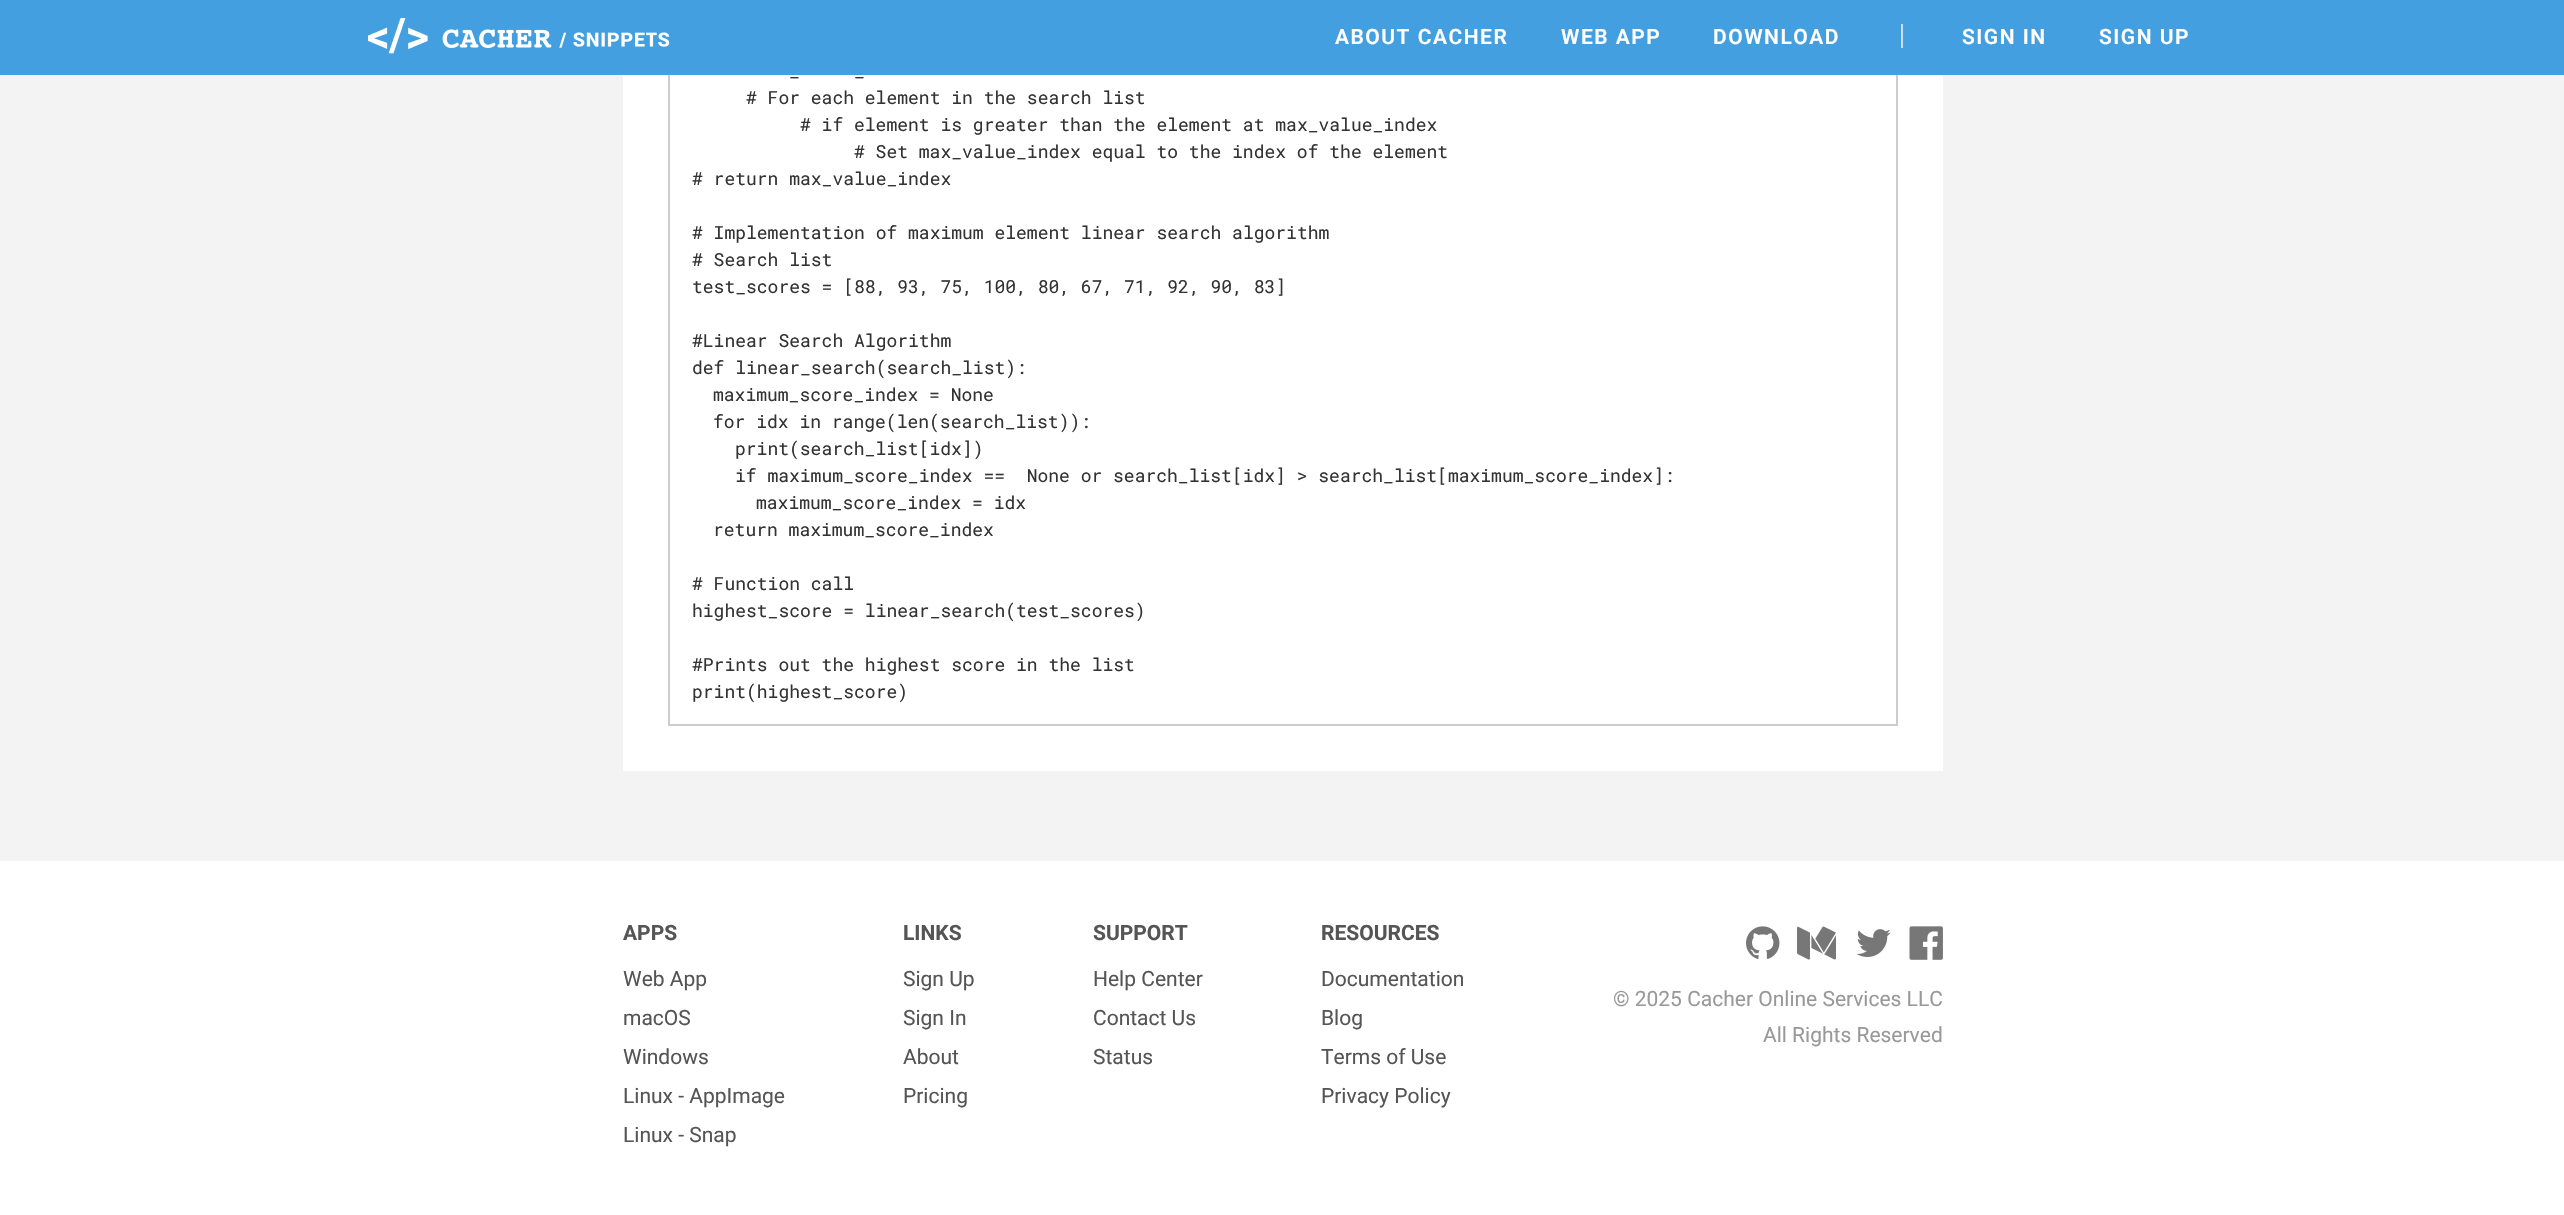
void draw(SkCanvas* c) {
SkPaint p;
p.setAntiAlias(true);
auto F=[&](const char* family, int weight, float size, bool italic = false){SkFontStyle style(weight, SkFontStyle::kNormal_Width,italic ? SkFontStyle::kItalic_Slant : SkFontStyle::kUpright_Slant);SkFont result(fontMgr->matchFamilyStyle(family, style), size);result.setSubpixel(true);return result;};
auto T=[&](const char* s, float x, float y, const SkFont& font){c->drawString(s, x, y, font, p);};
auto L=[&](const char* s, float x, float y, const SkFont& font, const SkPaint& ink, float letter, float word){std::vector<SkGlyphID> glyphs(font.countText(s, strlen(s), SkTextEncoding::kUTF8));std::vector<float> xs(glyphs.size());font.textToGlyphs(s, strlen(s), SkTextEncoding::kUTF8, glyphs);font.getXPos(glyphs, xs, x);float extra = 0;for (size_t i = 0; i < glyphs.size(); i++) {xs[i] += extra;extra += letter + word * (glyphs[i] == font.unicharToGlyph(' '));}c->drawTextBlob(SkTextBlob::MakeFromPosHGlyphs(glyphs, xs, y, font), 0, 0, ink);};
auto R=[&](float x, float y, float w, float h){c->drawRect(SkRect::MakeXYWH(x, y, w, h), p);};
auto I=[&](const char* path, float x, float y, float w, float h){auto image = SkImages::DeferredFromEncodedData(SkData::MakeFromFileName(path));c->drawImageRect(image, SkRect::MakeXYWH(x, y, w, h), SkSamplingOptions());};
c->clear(0xfff3f3f3);
p.setColor(0xffffffff);
R(623,75,1320,696);
p.setStroke(true);
p.setStrokeWidth(2);
p.setColor(0xffcccccc);
c->drawRect(SkRect::MakeXYWH(669,-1,1228,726),p);
p.setStroke(false);
p.setColor(0xff439fe0);
R(0,0,2564,75);
I("1.png",368,18,302,36);
auto f1 = F("Roboto",600,21);
p.setColor(0xffffffff);
L("ABOUT CACHER",1335,44,f1,p,1.5,0);
L("WEB APP",1561,44,f1,p,1.5,0);
L("DOWNLOAD",1713,44,f1,p,1.5,0);
p.setColor(0xffc7e2f6);
R(1901,24,2,24);
p.setColor(0xffffffff);
L("SIGN IN",1962,44,f1,p,1.5,0);
L("SIGN UP",2099,44,f1,p,1.5,0);
auto f2 = F("Roboto Mono",400,18);
p.setColor(0xff333333);
T("_",789,77,f2);
T("_",854,77,f2);
T("# For each element in the search list",746,104,f2);
T("# if element is greater than the element at max_value_index",800,131,f2);
T("# Set max_value_index equal to the index of the element",854,158,f2);
T("# return max_value_index",692,185,f2);
T("# Implementation of maximum element linear search algorithm",692,239,f2);
T("# Search list",692,266,f2);
T("test_scores = [88, 93, 75, 100, 80, 67, 71, 92, 90, 83]",692,293,f2);
T("#Linear Search Algorithm",692,347,f2);
T("def linear_search(search_list):",692,374,f2);
T("maximum_score_index = None",713,401,f2);
T("for idx in range(len(search_list)):",713,428,f2);
T("print(search_list[idx])",735,455,f2);
T("if maximum_score_index ==  None or search_list[idx] > search_list[maximum_score_index]:",735,482,f2);
T("maximum_score_index = idx",756,509,f2);
T("return maximum_score_index",713,536,f2);
T("# Function call",692,590,f2);
T("highest_score = linear_search(test_scores)",692,617,f2);
T("#Prints out the highest score in the list",692,671,f2);
T("print(highest_score)",692,698,f2);
p.setColor(0xffffffff);
R(0,861,2564,354);
auto f3 = F("Roboto",700,21);
p.setColor(0xff555555);
T("APPS",623,940,f3);
auto f4 = F("Roboto",400,21);
T("Web App",623,986,f4);
T("macOS",623,1025,f4);
T("Windows",623,1064,f4);
T("Linux - AppImage",623,1103,f4);
T("Linux - Snap",623,1142,f4);
T("LINKS",903,940,f3);
T("Sign Up",903,986,f4);
T("Sign In",903,1025,f4);
T("About",903,1064,f4);
T("Pricing",903,1103,f4);
T("SUPPORT",1093,940,f3);
T("Help Center",1093,986,f4);
T("Contact Us",1093,1025,f4);
T("Status",1093,1064,f4);
T("RESOURCES",1321,940,f3);
T("Documentation",1321,986,f4);
T("Blog",1321,1025,f4);
T("Terms of Use",1321,1064,f4);
T("Privacy Policy",1321,1103,f4);
I("2.png",1746,926,34,33);
I("3.png",1797,926,39,34);
I("4.png",1856,929,35,28);
I("5.png",1909,926,34,34);
p.setColor(0xff999999);
T("© 2025 Cacher Online Services LLC",1613,1006,f4);
T("All Rights Reserved",1763,1042,f4);
}
